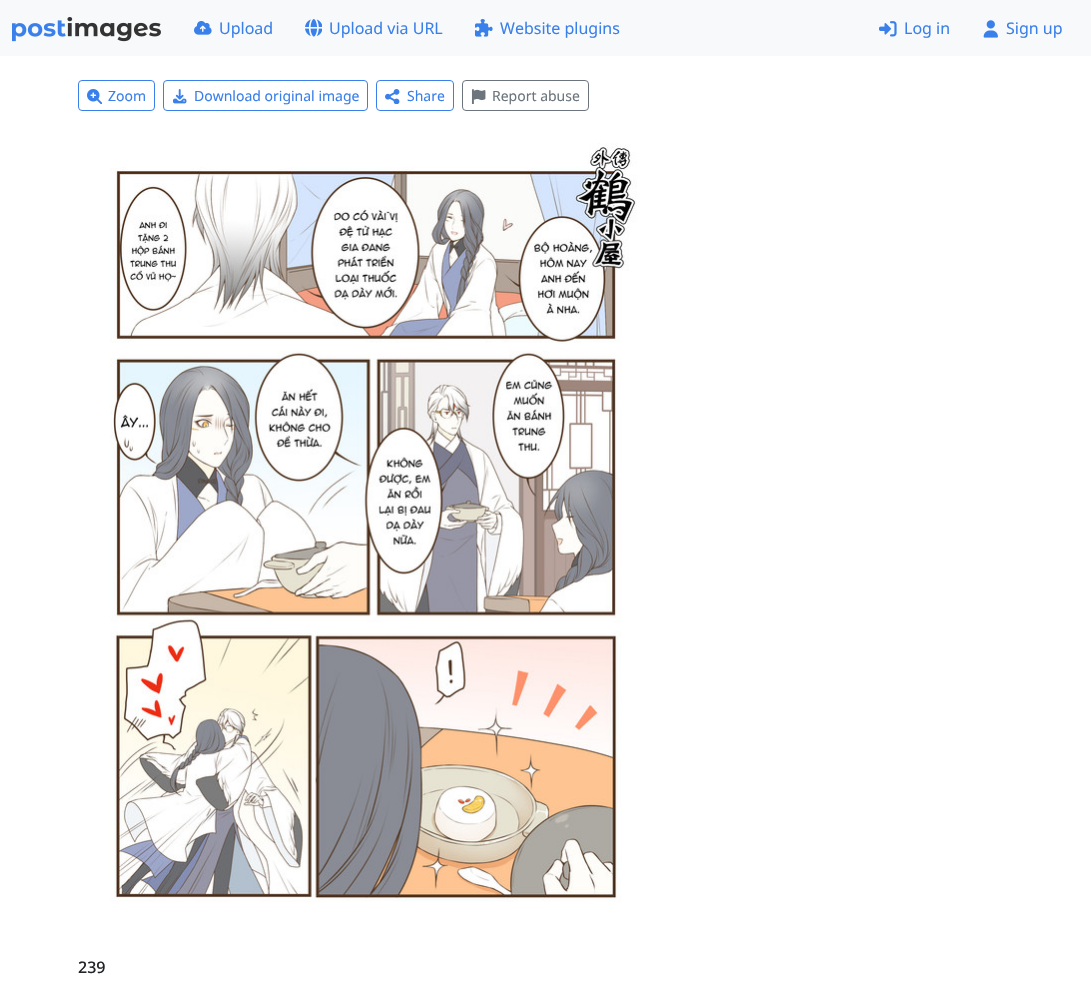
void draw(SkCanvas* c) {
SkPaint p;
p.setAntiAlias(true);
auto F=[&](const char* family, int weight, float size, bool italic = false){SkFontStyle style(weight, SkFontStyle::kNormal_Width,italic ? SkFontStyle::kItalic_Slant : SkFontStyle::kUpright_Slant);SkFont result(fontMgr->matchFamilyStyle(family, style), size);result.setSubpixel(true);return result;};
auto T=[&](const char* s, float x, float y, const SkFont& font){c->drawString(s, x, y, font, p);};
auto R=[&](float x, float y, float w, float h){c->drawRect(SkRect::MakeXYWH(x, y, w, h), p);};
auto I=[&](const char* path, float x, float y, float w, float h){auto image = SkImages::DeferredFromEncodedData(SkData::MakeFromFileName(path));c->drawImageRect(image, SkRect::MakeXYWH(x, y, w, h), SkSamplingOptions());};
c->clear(0xffffffff);
p.setColor(0xfff8f9fa);
R(0,0,1091,56);
I("1.png",12,17,149,25);
I("2.png",194,21,18,14);
auto f1 = F("Noto Sans",400,16);
p.setColor(0xff3a80ea);
T("Upload",219,34,f1);
I("3.png",305,19,17,18);
T("Upload via URL",329,34,f1);
I("4.png",475,19,18,18);
T("Website plugins",500,34,f1);
I("5.png",879,21,18,16);
T("Log in",904,34,f1);
I("6.png",983,20,15,18);
T("Sign up",1006,34,f1);
p.setStroke(true);
p.setStrokeWidth(1);
c->drawRoundRect(SkRect::MakeXYWH(78.5,80.5,76,30),3.5,3.5,p);
I("7.png",87,89,15,15);
auto f2 = F("Noto Sans",400,14);
p.setStroke(false);
T("Zoom",108,101,f2);
p.setStroke(true);
c->drawRoundRect(SkRect::MakeXYWH(163.5,80.5,204,30),3.5,3.5,p);
I("8.png",172,89,15,15);
p.setStroke(false);
T("Download original image",194,101,f2);
p.setStroke(true);
c->drawRoundRect(SkRect::MakeXYWH(376.5,80.5,77,30),3.5,3.5,p);
I("9.png",385,89,15,15);
p.setStroke(false);
T("Share",407,101,f2);
p.setStroke(true);
p.setColor(0xff6c757d);
c->drawRoundRect(SkRect::MakeXYWH(462.5,80.5,126,30),3.5,3.5,p);
I("10.png",471,89,15,15);
p.setStroke(false);
T("Report abuse",492,101,f2);
I("11.png",110,143,527,759);
auto f3 = F("Noto Sans",500,16);
p.setColor(0xff212529);
T("239",78,973,f3);
}
